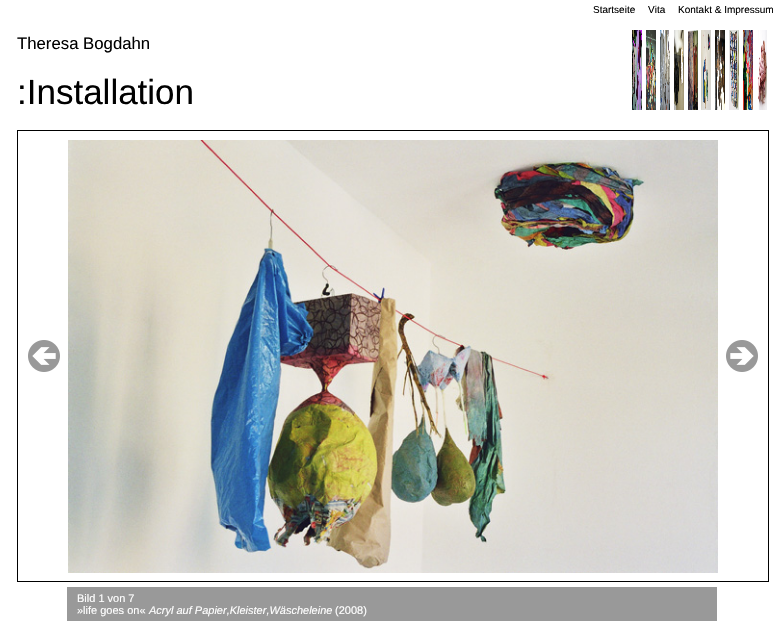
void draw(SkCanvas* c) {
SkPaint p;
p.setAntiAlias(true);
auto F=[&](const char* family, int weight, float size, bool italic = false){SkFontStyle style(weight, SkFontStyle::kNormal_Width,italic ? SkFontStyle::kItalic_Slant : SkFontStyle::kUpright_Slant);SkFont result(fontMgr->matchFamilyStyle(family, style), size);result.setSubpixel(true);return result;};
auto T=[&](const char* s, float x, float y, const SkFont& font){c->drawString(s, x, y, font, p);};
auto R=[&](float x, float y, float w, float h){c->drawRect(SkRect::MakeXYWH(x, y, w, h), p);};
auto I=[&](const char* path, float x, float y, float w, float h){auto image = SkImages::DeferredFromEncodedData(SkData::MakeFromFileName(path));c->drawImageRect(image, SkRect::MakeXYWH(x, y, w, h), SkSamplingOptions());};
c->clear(0xffffffff);
auto f1 = F("Liberation Sans",400,10);
p.setColor(0xff000000);
T("Startseite",593,13,f1);
T("Vita",648,13,f1);
T("Kontakt & Impressum",678,13,f1);
auto f2 = F("Liberation Sans",400,16.75);
T("Theresa Bogdahn",17,49,f2);
I("1.png",632,30,10,80);
I("2.png",646,30,10,80);
I("3.png",660,30,10,80);
I("4.png",674,30,10,80);
I("5.png",688,30,10,80);
I("6.png",701,30,10,80);
I("7.png",715,30,10,80);
I("8.png",729,30,10,80);
I("9.png",743,30,10,80);
I("10.png",758,30,9,80);
auto f3 = F("Liberation Sans",400,35);
T(":Installation",17,104,f3);
p.setStroke(true);
p.setStrokeWidth(1);
c->drawRect(SkRect::MakeXYWH(17.5,130.5,751,451),p);
I("11.png",68,140,650,433);
I("12.png",28,340,32,32);
I("13.png",726,340,32,32);
p.setStroke(false);
p.setColor(0xff999999);
R(67,587,650,34);
auto f4 = F("Liberation Sans",400,11);
p.setColor(0xffffffff);
T("Bild 1 von 7",77,602,f4);
T("»life goes on«",77,614,f4);
auto f5 = F("Liberation Sans",400,11,true);
T("Acryl auf Papier,Kleister,Wäscheleine",149,614,f5);
T("(2008)",335,614,f4);
}
